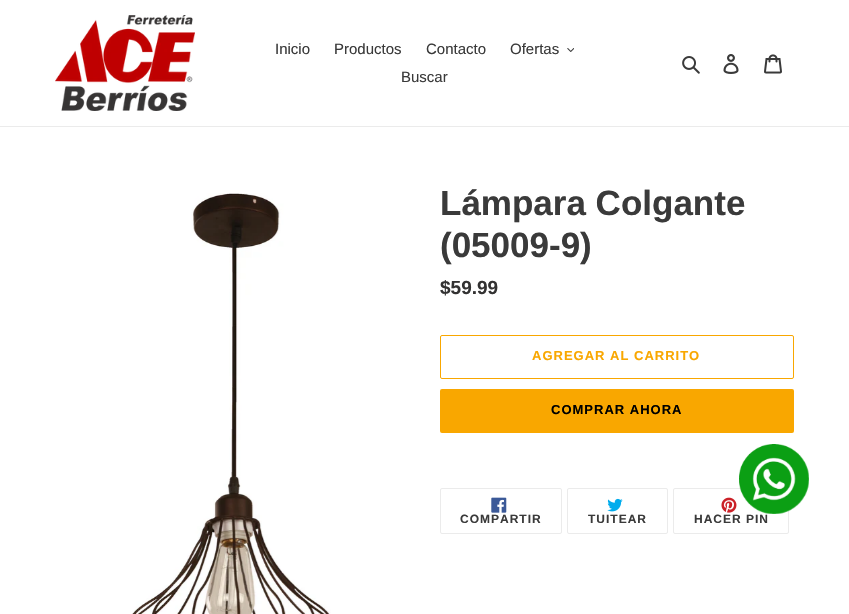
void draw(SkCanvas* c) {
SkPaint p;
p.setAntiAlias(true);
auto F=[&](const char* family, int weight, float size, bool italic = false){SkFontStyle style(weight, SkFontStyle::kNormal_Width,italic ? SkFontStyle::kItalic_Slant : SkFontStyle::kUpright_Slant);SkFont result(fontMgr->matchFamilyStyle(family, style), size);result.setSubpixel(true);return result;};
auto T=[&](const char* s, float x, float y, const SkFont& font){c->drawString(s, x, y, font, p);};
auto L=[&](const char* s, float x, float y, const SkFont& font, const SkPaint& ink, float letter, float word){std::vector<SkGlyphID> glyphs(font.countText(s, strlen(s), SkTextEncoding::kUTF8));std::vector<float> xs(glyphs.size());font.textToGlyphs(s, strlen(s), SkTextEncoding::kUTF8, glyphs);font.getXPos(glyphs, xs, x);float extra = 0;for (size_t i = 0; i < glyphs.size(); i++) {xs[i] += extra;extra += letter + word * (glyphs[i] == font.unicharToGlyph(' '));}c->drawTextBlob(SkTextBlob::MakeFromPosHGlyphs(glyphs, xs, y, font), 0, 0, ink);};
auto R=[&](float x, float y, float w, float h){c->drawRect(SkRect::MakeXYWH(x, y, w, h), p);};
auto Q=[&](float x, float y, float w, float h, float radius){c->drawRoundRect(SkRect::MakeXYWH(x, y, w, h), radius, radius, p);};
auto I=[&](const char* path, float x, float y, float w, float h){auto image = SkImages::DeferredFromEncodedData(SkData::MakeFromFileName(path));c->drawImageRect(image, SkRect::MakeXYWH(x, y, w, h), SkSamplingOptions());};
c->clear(0xffffffff);
p.setColor(0xffebebeb);
R(0,126,849,1);
I("1.png",55,15,140,96);
auto f1 = F("Liberation Sans",400,15);
p.setColor(0xff3a3a3a);
T("Inicio",275,54,f1);
T("Productos",334,54,f1);
T("Contacto",426,54,f1);
T("Ofertas",510,54,f1);
I("2.png",567,48,7,4);
T("Buscar",401,82,f1);
I("3.png",682,56,18,18);
I("4.png",723,54,16,20);
I("5.png",764,54,18,20);
I("6.png",132,193,199,421);
auto f2 = F("Liberation Sans",700,35);
T("Lámpara Colgante",440,215,f2);
T("(05009-9)",440,257,f2);
auto f3 = F("Liberation Sans",700,19);
p.setColor(0xff333232);
T("$59.99",440,294,f3);
p.setStroke(true);
p.setStrokeWidth(1);
p.setColor(0xfff9a700);
c->drawRoundRect(SkRect::MakeXYWH(440.5,335.5,353,43),1.5,1.5,p);
auto f4 = F("Liberation Sans",700,13);
p.setStroke(false);
L("AGREGAR AL CARRITO",532,360,f4,p,1,0);
Q(440,389,354,44,2);
p.setColor(0xff000000);
L("COMPRAR AHORA",551,414,f4,p,1,0);
p.setStroke(true);
p.setColor(0xffebebeb);
c->drawRoundRect(SkRect::MakeXYWH(440.5,488.5,121,45),1.5,1.5,p);
I("7.png",491,497,16,16);
auto f5 = F("Liberation Sans",700,12);
p.setStroke(false);
p.setColor(0xff3a3a3a);
L("COMPARTIR",460,523,f5,p,1,0);
p.setStroke(true);
p.setColor(0xffebebeb);
c->drawRoundRect(SkRect::MakeXYWH(567.5,488.5,100,45),1.5,1.5,p);
I("8.png",607,498,16,14);
p.setStroke(false);
p.setColor(0xff3a3a3a);
L("TUITEAR",588,523,f5,p,1,0);
p.setStroke(true);
p.setColor(0xffebebeb);
c->drawRoundRect(SkRect::MakeXYWH(673.5,488.5,115,45),1.5,1.5,p);
I("9.png",721,497,16,16);
p.setStroke(false);
p.setColor(0xff3a3a3a);
L("HACER PIN",694,523,f5,p,1,0);
I("10.png",739,444,70,70);
}
